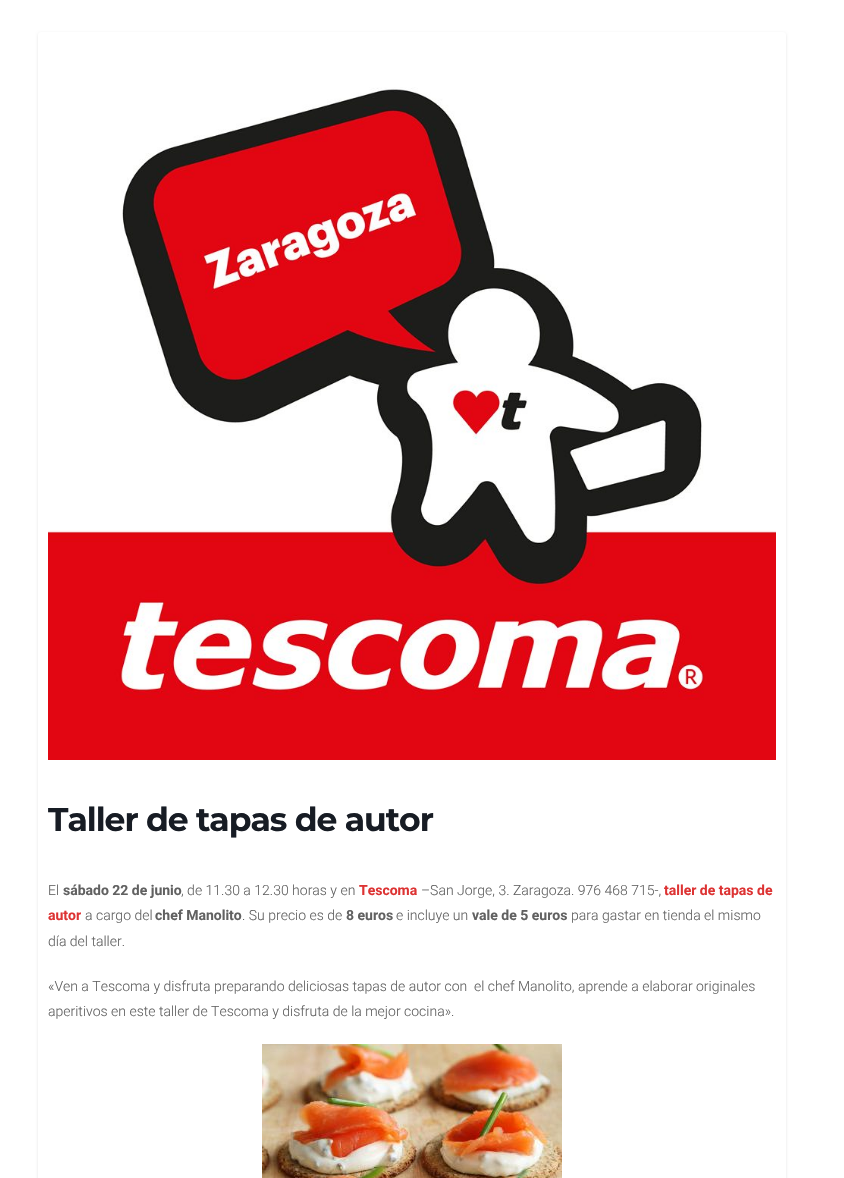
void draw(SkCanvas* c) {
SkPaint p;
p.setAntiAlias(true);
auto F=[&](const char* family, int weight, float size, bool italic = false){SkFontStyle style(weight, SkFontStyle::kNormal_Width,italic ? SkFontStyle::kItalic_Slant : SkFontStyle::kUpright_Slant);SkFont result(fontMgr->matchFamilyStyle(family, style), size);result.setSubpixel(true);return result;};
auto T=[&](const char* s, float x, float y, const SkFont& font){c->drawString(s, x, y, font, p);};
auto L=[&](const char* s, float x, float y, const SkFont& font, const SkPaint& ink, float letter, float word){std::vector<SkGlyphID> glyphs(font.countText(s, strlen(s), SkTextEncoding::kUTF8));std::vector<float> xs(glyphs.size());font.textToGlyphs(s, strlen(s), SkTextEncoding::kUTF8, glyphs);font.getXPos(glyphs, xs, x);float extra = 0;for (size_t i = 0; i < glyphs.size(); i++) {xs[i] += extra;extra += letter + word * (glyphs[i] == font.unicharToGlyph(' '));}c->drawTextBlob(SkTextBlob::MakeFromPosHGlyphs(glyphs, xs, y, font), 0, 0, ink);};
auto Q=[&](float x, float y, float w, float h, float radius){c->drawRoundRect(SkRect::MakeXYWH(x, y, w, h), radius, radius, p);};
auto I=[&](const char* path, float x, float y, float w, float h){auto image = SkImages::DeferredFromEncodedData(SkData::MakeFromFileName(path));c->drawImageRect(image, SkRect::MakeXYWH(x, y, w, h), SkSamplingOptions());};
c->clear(0xffffffff);
p.setColor(0x1a000000);
p.setMaskFilter(SkMaskFilter::MakeBlur(kNormal_SkBlurStyle, 1.5));
c->drawRoundRect(SkRect::MakeXYWH(38,33,748,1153),3,3,p);
p.setMaskFilter(nullptr);
p.setColor(0xffffffff);
Q(38,32,748,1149,3);
I("1.png",48,87,728,673);
auto f1 = F("Montserrat",700,33);
p.setColor(0xff171c24);
L("Taller de tapas de autor",48,831,f1,p,-1,0);
auto f2 = F("Roboto",300,14);
p.setColor(0xff616161);
T("El",48,895,f2);
auto f3 = F("Roboto",700,14);
T("sábado 22 de junio",63,895,f3);
T(", de 11.30 a 12.30 horas y en",181,895,f2);
p.setColor(0xffdd3333);
T("Tescoma",359,895,f3);
p.setColor(0xff616161);
T("–San Jorge, 3. Zaragoza. 976 468 715-,",421,895,f2);
p.setColor(0xffdd3333);
T("taller de tapas de",664,895,f3);
T("autor",48,920,f3);
p.setColor(0xff616161);
T("a cargo del",85,920,f2);
T("chef Manolito",155,920,f3);
T(". Su precio es de",242,920,f2);
T("8 euros",346,920,f3);
T("e incluye un",396,920,f2);
T("vale de 5 euros",472,920,f3);
T("para gastar en tienda el mismo",571,920,f2);
T("día del taller.",48,946,f2);
T("«Ven a Tescoma y disfruta preparando deliciosas tapas de autor con  el chef Manolito, aprende a elaborar originales",48,991,f2);
T("aperitivos en este taller de Tescoma y disfruta de la mejor cocina».",48,1016,f2);
I("2.png",262,1044,300,134);
}
